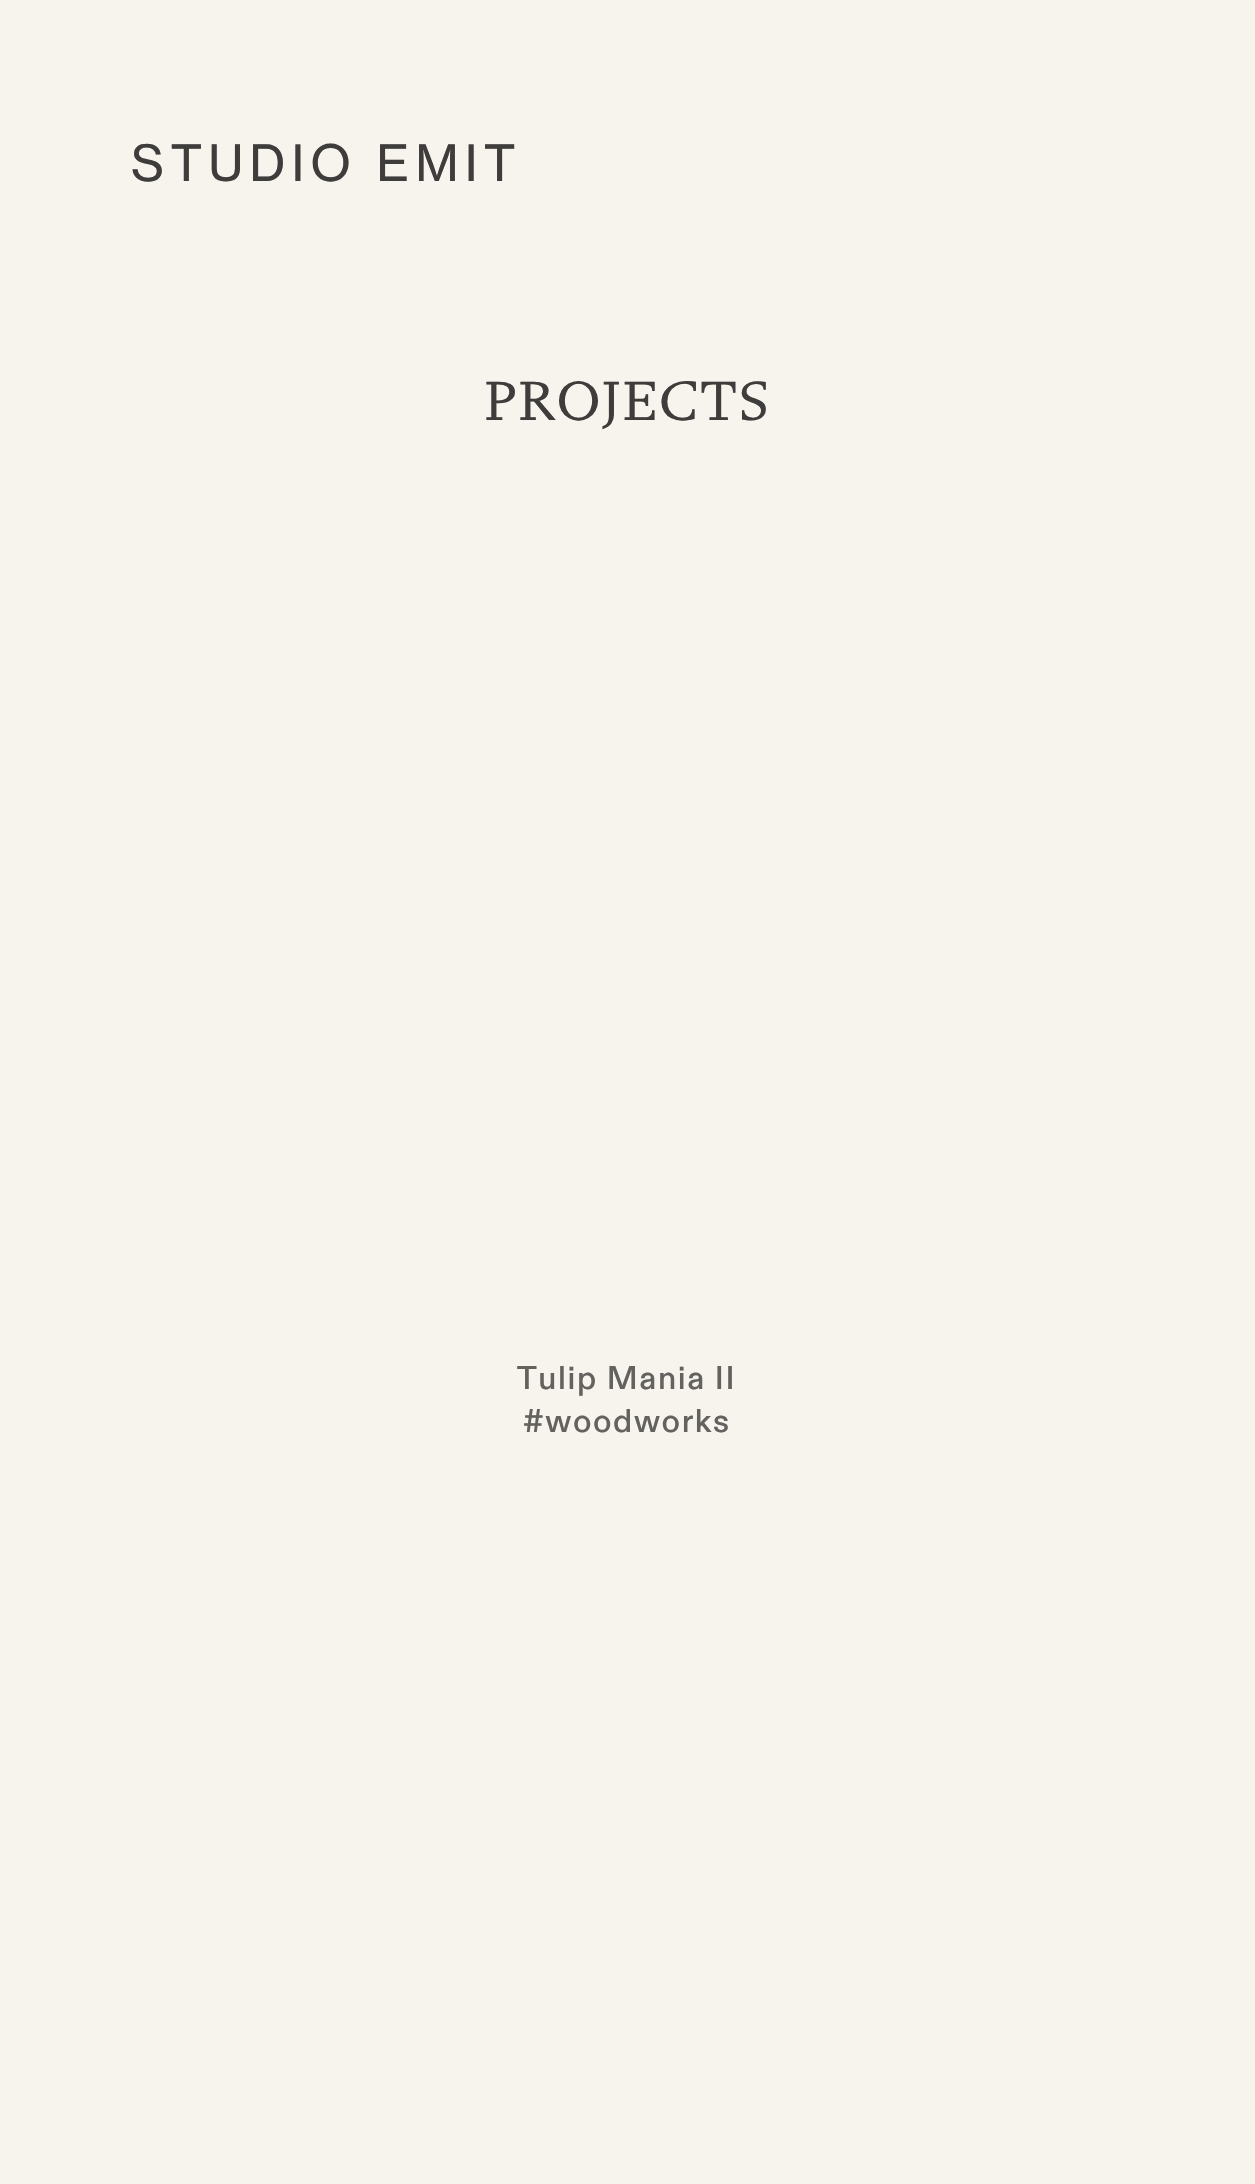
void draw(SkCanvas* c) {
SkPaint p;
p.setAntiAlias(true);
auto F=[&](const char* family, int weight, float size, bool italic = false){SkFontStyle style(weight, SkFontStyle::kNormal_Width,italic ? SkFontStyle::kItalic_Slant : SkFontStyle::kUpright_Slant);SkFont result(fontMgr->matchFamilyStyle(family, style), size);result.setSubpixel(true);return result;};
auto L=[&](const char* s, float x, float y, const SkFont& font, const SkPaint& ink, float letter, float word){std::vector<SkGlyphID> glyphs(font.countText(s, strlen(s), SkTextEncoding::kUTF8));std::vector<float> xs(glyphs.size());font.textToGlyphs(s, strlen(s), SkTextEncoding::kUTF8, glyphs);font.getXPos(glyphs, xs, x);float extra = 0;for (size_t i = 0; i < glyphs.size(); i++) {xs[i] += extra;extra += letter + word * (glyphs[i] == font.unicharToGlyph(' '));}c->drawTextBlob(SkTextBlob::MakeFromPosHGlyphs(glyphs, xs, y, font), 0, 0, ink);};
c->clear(0xfff7f4ee);
auto f1 = F("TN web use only",400,49.25);
p.setColor(0xff3e3d3c);
L("STUDIO EMIT",131,181,f1,p,6.1,0);
auto f2 = F("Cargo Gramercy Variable",400,54.75);
L("PROJECTS",484,420,f2,p,1.5,0);
auto f3 = F("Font",500,32.75);
p.setColor(0xff63625f);
L("Tulip Mania II",517,1389,f3,p,1.6,0);
L("#woodworks",523,1432,f3,p,1.6,0);
}
